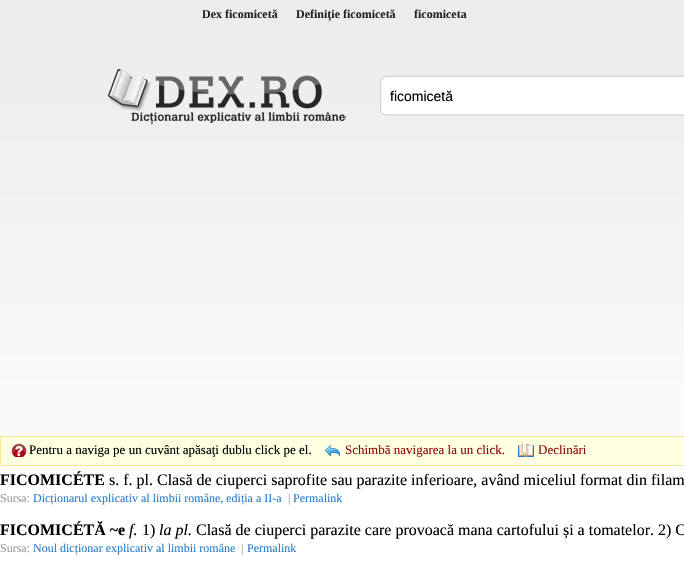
void draw(SkCanvas* c) {
SkPaint p;
p.setAntiAlias(true);
auto F=[&](const char* family, int weight, float size, bool italic = false){SkFontStyle style(weight, SkFontStyle::kNormal_Width,italic ? SkFontStyle::kItalic_Slant : SkFontStyle::kUpright_Slant);SkFont result(fontMgr->matchFamilyStyle(family, style), size);result.setSubpixel(true);return result;};
auto T=[&](const char* s, float x, float y, const SkFont& font){c->drawString(s, x, y, font, p);};
auto I=[&](const char* path, float x, float y, float w, float h){auto image = SkImages::DeferredFromEncodedData(SkData::MakeFromFileName(path));c->drawImageRect(image, SkRect::MakeXYWH(x, y, w, h), SkSamplingOptions());};
c->clear(0xffffffff);
I("1.png",0,0,684,436);
auto f1 = F("Liberation Serif",700,12);
p.setColor(0xff222222);
T("Dex ficomicetă",202,18,f1);
T("Definiţie ficomicetă",296,18,f1);
T("ficomiceta",414,18,f1);
I("2.png",107,69,239,56);
I("3.png",380,75,304,41);
auto f2 = F("Liberation Sans",400,14);
p.setColor(0xff000000);
T("ficomicetă",390,101,f2);
p.setColor(0xffffffe1);
c->drawRect(SkRect::MakeXYWH(.5,436.5,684,29),p);
p.setStroke(true);
p.setStrokeWidth(1);
p.setColor(0xfff9e795);
c->drawRect(SkRect::MakeXYWH(.5,436.5,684,29),p);
I("4.png",11,443,16,14);
auto f3 = F("Liberation Serif",400,13);
p.setStroke(false);
p.setColor(0xff000000);
T("Pentru a naviga pe un cuvânt apăsaţi dublu click pe el.",29,454,f3);
I("5.png",325,445,15,11);
p.setColor(0xff8e0c0c);
T("Schimbă navigarea la un click.",345,454,f3);
I("6.png",518,443,16,14);
T("Declinări",538,454,f3);
auto f4 = F("Liberation Serif",700,16);
p.setColor(0xff000000);
T("FICOMICÉTE",0,485,f4);
auto f5 = F("Liberation Serif",400,16);
T("s. f. pl. Clasă de ciuperci saprofite sau parazite inferioare, având miceliul format din filam",109,485,f5);
auto f6 = F("Liberation Serif",400,12);
p.setColor(0xff999999);
T("Sursa:",0,502,f6);
p.setColor(0xff277bc9);
T("Dicționarul explicativ al limbii române, ediția a II-a",33,502,f6);
p.setColor(0xff999999);
T("|",288,502,f6);
p.setColor(0xff277bc9);
T("Permalink",293,502,f6);
p.setColor(0xff000000);
T("FICOMICÉTĂ ~e",0,535,f4);
auto f7 = F("Liberation Serif",400,16,true);
T("f.",129,535,f7);
T("1)",142,535,f5);
T("la pl.",159,535,f7);
T("Clasă de ciuperci parazite care provoacă mana cartofului și a tomatelor. 2) C",196,535,f5);
p.setColor(0xff999999);
T("Sursa:",0,552,f6);
p.setColor(0xff277bc9);
T("Noul dicționar explicativ al limbii române",33,552,f6);
p.setColor(0xff999999);
T("|",241,552,f6);
p.setColor(0xff277bc9);
T("Permalink",247,552,f6);
}
